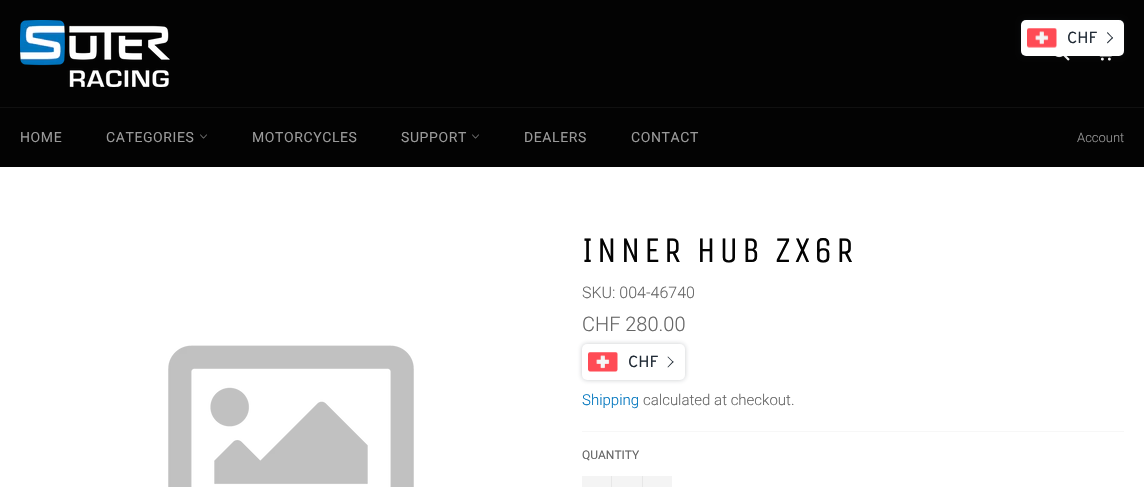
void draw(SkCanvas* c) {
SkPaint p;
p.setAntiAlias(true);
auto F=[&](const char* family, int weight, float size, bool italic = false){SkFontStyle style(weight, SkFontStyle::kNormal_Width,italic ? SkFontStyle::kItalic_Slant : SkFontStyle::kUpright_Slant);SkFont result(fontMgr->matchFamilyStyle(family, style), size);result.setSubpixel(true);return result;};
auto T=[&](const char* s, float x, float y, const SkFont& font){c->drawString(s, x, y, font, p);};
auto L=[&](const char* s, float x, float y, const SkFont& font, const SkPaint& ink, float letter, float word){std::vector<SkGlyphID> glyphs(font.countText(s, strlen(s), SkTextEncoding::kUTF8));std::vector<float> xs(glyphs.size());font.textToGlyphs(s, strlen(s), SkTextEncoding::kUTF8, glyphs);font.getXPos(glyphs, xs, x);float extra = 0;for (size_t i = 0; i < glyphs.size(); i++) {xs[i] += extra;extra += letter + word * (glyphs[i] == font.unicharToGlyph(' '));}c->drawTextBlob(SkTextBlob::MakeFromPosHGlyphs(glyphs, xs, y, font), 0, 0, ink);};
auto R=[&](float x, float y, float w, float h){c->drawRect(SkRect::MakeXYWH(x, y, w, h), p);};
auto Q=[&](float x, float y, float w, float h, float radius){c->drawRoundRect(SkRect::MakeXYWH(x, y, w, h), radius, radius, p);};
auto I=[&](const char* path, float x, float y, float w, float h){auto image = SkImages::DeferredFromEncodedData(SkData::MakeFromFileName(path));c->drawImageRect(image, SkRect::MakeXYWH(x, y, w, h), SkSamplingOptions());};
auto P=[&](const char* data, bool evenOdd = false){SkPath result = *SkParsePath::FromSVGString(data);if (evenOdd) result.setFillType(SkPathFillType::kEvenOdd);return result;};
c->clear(0xff030303);
I("3.png",1055,56,15,5);
I("4.png",1099,56,13,5);
p.setColor(0x40212b36);
p.setMaskFilter(SkMaskFilter::MakeBlur(kNormal_SkBlurStyle, 2.5));
c->drawRoundRect(SkRect::MakeXYWH(1021,20,103,36),5,5,p);
p.setMaskFilter(nullptr);
p.setColor(0xffffffff);
Q(1021,20,103,36,5);
I("1.png",1027,28,30,20);
auto f1 = F("Overpass",400,16);
p.setColor(0xff212b36);
T("CHF",1067,43,f1);
c->drawPath(P("M1107 33l.5-1l5.5 6l-.5 .5z"),p);
c->drawPath(P("M1107 42.5l5.5-5.5l.5 1l-5.5 5.5z"),p);
I("2.png",20,20,150,67);
p.setColor(0xff101010);
R(0,107,1144,1);
auto f2 = F("Roboto",400,14);
p.setColor(0xff9a9a9a);
L("HOME",20,142,f2,p,.6,0);
L("CATEGORIES",106,142,f2,p,.6,0);
I("5.png",200,134,7,5);
L("MOTORCYCLES",252,142,f2,p,.6,0);
L("SUPPORT",401,142,f2,p,.6,0);
I("5.png",472,134,7,5);
L("DEALERS",524,142,f2,p,.6,0);
L("CONTACT",631,142,f2,p,.6,0);
auto f3 = F("Roboto",300,13);
T("Account",1077,142,f3);
p.setColor(0xffffffff);
R(0,167,1144,320);
I("6.png",168,345,246,142);
auto f4 = F("Unica One",400,36);
p.setColor(0xff030303);
L("INNER HUB ZX6R",582,262,f4,p,3.6,0);
auto f5 = F("Roboto",300,16);
p.setColor(0xff666666);
T("SKU: 004-46740",582,298,f5);
auto f6 = F("Roboto",300,20);
T("CHF 280.00",582,331,f6);
p.setColor(0x40212b36);
p.setMaskFilter(SkMaskFilter::MakeBlur(kNormal_SkBlurStyle, 2.5));
c->drawRoundRect(SkRect::MakeXYWH(582,344,103,36),5,5,p);
p.setMaskFilter(nullptr);
p.setColor(0xffffffff);
Q(582,344,103,36,5);
I("7.png",588,352,30,20);
p.setColor(0xff212b36);
T("CHF",628,367,f1);
c->drawPath(P("M667.5 357l.5-.5l5.5 5.5l-.5 .5z"),p);
c->drawPath(P("M667.5 367l5.5-6l.5 1l-5.5 5.5z"),p);
auto f7 = F("Roboto",300,15);
p.setColor(0xff0075be);
T("Shipping",582,405,f7);
p.setColor(0xff666666);
T("calculated at checkout.",643,405,f7);
p.setColor(0xfff7f7f7);
R(582,431,542,1);
auto f8 = F("Roboto",400,12);
p.setColor(0xff666666);
T("QUANTITY",582,459,f8);
p.setColor(0xfff4f4f4);
R(582,476,90,11);
p.setColor(0xffe7e7e7);
R(611,476,1,11);
R(642,476,1,11);
}
